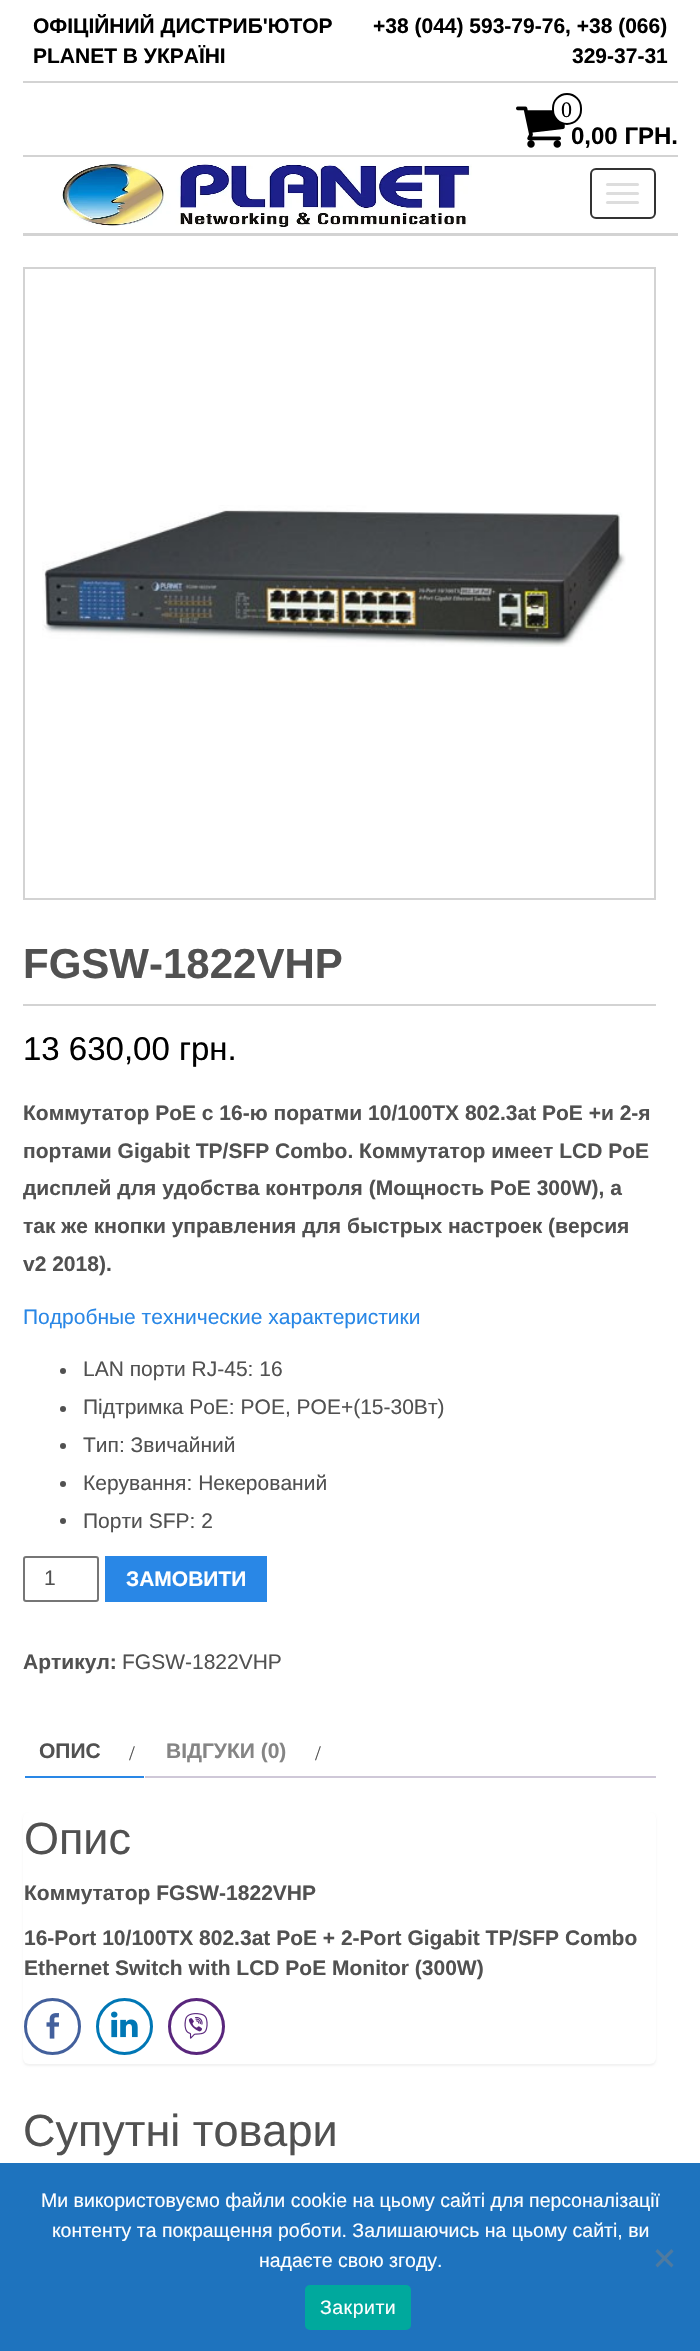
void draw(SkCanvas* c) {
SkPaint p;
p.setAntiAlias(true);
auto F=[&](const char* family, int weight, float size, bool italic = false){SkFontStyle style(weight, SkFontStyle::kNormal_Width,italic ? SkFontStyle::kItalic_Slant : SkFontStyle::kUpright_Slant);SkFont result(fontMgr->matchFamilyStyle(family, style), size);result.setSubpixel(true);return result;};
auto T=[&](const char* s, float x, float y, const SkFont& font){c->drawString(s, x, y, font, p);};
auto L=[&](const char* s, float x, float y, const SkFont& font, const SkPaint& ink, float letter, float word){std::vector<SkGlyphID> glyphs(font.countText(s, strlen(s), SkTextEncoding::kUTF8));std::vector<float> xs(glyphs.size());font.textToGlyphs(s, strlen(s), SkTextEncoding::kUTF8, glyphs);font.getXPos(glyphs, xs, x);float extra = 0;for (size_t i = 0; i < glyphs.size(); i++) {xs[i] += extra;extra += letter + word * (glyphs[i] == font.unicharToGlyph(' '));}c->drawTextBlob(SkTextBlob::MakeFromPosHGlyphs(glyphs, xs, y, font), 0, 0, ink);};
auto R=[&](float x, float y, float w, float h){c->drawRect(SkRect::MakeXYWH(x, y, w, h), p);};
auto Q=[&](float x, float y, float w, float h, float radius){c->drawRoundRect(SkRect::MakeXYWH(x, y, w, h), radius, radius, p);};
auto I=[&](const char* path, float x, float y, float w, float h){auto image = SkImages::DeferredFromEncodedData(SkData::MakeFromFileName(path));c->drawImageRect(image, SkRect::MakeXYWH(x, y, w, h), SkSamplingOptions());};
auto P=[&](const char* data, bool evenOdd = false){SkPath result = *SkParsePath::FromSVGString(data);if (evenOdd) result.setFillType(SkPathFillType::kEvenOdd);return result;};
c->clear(0xffffffff);
p.setColor(0xffd3d3d3);
R(23,81,655,2);
auto f1 = F("Liberation Sans",700,21);
p.setColor(0xff000000);
T("ОФІЦІЙНИЙ ДИСТРИБ'ЮТОР",33,33,f1);
T("PLANET В УКРАЇНІ",33,63,f1);
T("+38 (044) 593-79-76, +38 (066)",373,33,f1);
T("329-37-31",572,63,f1);
I("1.png",516,106,49,42);
p.setColor(0xffffffff);
c->drawRoundRect(SkRect::MakeXYWH(553,94,28,30),14,14,p);
p.setStroke(true);
p.setStrokeWidth(2);
p.setColor(0xff000000);
c->drawRoundRect(SkRect::MakeXYWH(553,94,28,30),14,14,p);
auto f2 = F("Liberation Serif",400,22);
p.setStroke(false);
T("0",561,117,f2);
auto f3 = F("Liberation Sans",700,24);
T("0,00 ГРН.",571,144,f3);
p.setColor(0xffd3d3d3);
R(23,233,655,3);
R(23,155,655,2);
I("2.png",62,163,410,64);
p.setStroke(true);
p.setColor(0xff333333);
c->drawRoundRect(SkRect::MakeXYWH(591,169,64,49),5,5,p);
p.setStroke(false);
p.setColor(0xffdddddd);
Q(606,183,33,3,1.5);
Q(606,192,33,3,1.5);
Q(606,201,33,3,1.5);
p.setStroke(true);
p.setColor(0xffd3d3d3);
c->drawRect(SkRect::MakeXYWH(24,268,631,631),p);
I("3.png",42,505,584,142);
p.setStroke(false);
R(23,1004,633,2);
auto f4 = F("Liberation Sans",700,42);
p.setColor(0xff515151);
T("FGSW-1822VHP",23,978,f4);
auto f5 = F("Liberation Sans",400,33);
p.setColor(0xff000000);
T("13 630,00 грн.",23,1060,f5);
p.setColor(0xff515151);
T("Коммутатор PoE с 16-ю поратми 10/100TX 802.3at PoE +и 2-я",23,1120,f1);
T("портами Gigabit TP/SFP Combo. Коммутатор имеет LCD PoE",23,1158,f1);
T("дисплей для удобства контроля (Мощность PoE 300W), а",23,1195,f1);
T("так же кнопки управления для быстрых настроек (версия",23,1233,f1);
T("v2 2018).",23,1271,f1);
auto f6 = F("Liberation Sans",400,21);
p.setColor(0xff2987e6);
T("Подробные технические характеристики",23,1324,f6);
p.setColor(0xff515151);
c->drawCircle(63,1371,3,p);
T("LAN порти RJ-45: 16",83,1376,f6);
c->drawCircle(63,1409,3,p);
T("Підтримка PoE: POE, POE+(15-30Вт)",83,1414,f6);
c->drawCircle(63,1446,3,p);
T("Тип: Звичайний",83,1452,f6);
c->drawCircle(63,1484,3,p);
T("Керування: Некерований",83,1490,f6);
c->drawCircle(63,1521,3,p);
T("Порти SFP: 2",83,1528,f6);
p.setStroke(true);
p.setColor(0xff767676);
c->drawRoundRect(SkRect::MakeXYWH(24,1557,74,44),2,2,p);
p.setStroke(false);
p.setColor(0xff515151);
T("1",44,1585,f6);
p.setColor(0xff2987e6);
R(105,1556,162,46);
p.setColor(0xffffffff);
T("ЗАМОВИТИ",126,1586,f1);
p.setColor(0xff515151);
T("Артикул:",23,1669,f1);
T("FGSW-1822VHP",122,1669,f6);
p.setColor(0xff2987e6);
R(23,1776,121,2);
p.setColor(0xffffffff);
R(23,1776,2,2);
p.setColor(0xff515151);
T("ОПИС",39,1758,f1);
auto f7 = F("Liberation Serif",400,21);
T("/",129,1760,f7);
p.setColor(0xff858585);
T("ВІДГУКИ (0)",166,1758,f1);
p.setColor(0xff515151);
T("/",315,1760,f7);
p.setColor(0xffcfc8d8);
R(145,1776,511,2);
p.setColor(0x0d000000);
p.setMaskFilter(SkMaskFilter::MakeBlur(kNormal_SkBlurStyle, 1));
c->drawRoundRect(SkRect::MakeXYWH(23,1814,633,252),6,6,p);
p.setMaskFilter(nullptr);
p.setColor(0xffffffff);
Q(23,1812,633,252,6);
auto f8 = F("Liberation Sans",400,45);
p.setColor(0xff515151);
T("Опис",24,1854,f8);
T("Коммутатор FGSW-1822VHP",24,1900,f1);
T("16-Port 10/100TX 802.3at PoE + 2-Port Gigabit TP/SFP Combo",24,1945,f1);
T("Ethernet Switch with LCD PoE Monitor (300W)",24,1975,f1);
p.setStroke(true);
p.setStrokeWidth(3);
p.setColor(0xff43609c);
c->drawCircle(52.5,2026.5,27,p);
I("4.png",46,2013,14,26);
p.setColor(0xff0077b5);
c->drawCircle(124.5,2026.5,27,p);
I("5.png",111,2011,27,27);
p.setColor(0xff59267c);
c->drawCircle(196.5,2026.5,27,p);
I("6.png",184,2013,24,26);
p.setStroke(false);
p.setColor(0xff515151);
T("Супутні товари",23,2146,f8);
p.setColor(0xff1e73be);
R(0,2163,700,188);
auto f9 = F("Liberation Sans",400,19.5);
p.setColor(0xffffffff);
T("Ми використовуємо файли cookie на цьому сайті для персоналізації",41,2207,f9);
T("контенту та покращення роботи. Залишаючись на цьому сайті, ви",52,2237,f9);
T("надаєте свою згоду.",259,2267,f9);
p.setColor(0xff4f7a9f);
c->drawPath(P("M671.5 2249l2 2.5l-16 16l-2-2.5z"),p);
c->drawPath(P("M655.5 2251.5l2-2.5l16 16l-2 2.5z"),p);
p.setColor(0xff00a99d);
Q(305,2285,106,45,5);
p.setColor(0xffffffff);
L("Закрити",320,2314,f9,p,.5,0);
}
